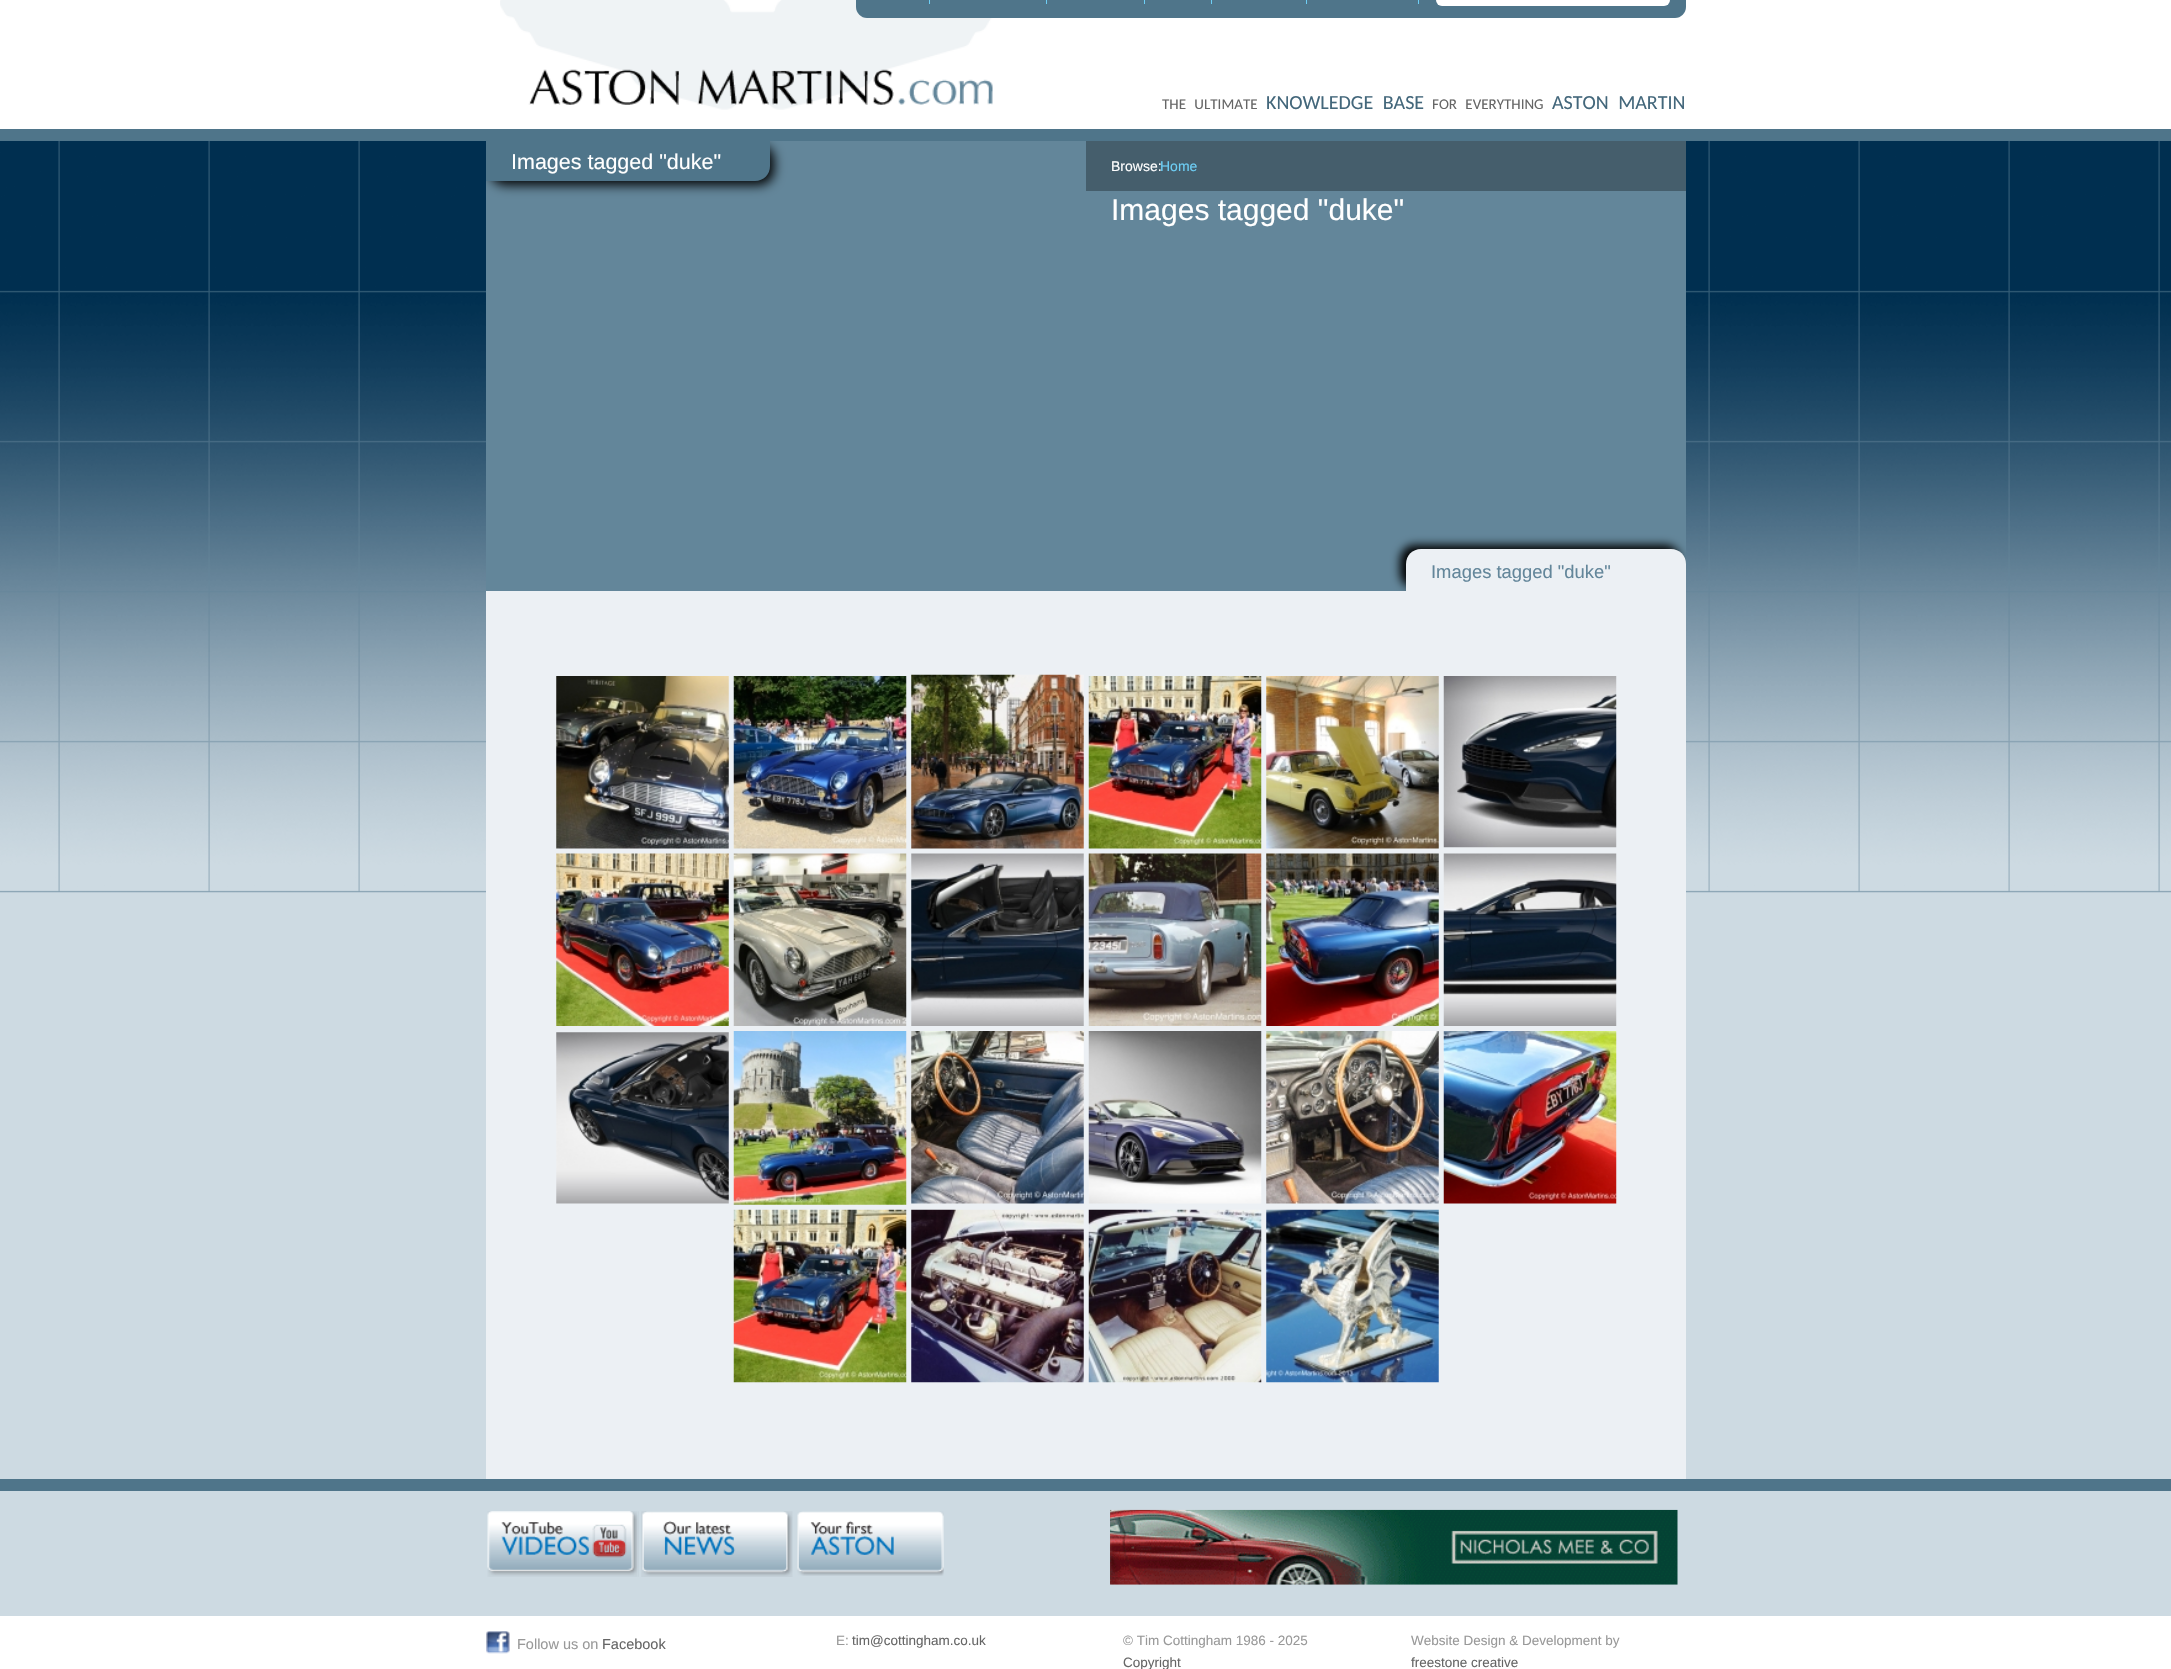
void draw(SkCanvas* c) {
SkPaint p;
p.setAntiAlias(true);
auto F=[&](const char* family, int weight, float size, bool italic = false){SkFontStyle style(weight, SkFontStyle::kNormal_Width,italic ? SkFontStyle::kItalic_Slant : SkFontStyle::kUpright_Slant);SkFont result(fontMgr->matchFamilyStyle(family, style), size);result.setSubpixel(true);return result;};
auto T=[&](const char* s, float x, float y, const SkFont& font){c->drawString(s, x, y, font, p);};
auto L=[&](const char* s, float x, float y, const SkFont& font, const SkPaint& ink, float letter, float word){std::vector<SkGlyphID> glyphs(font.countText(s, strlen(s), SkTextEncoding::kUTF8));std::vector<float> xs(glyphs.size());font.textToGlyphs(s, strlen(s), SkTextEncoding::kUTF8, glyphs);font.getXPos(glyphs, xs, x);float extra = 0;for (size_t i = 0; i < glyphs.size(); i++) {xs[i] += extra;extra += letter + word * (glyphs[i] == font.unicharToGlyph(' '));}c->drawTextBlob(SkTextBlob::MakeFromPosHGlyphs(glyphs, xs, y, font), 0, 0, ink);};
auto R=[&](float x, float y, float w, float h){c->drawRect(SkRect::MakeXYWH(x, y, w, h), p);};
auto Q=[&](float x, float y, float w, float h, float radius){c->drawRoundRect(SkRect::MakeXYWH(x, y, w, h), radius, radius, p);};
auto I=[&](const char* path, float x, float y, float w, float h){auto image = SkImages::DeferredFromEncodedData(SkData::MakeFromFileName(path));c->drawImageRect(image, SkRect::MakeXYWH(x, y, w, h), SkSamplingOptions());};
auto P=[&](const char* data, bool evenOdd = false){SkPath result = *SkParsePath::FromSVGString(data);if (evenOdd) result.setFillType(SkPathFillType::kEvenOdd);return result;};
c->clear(0xffffffff);
I("1.png",500,0,505,110);
p.setColor(0xff4f758a);
c->drawPath(P("M856-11h830v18c0 6-5 11-11 11h-808c-6 0-11-5-11-11z"),p);
p.setColor(0xff6dcff6);
R(929,0,1,4);
R(1046,0,1,4);
R(1144,0,1,4);
R(1211,0,1,4);
R(1306,0,1,4);
R(1418,0,1,4);
p.setColor(0xffffffff);
Q(1436,-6,234,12,6);
auto f1 = F("Carlito",400,15);
p.setColor(0xff666666);
L("THE ULTIMATE",1162,109,f1,p,0,5);
auto f2 = F("Carlito",400,20);
p.setColor(0xff43677b);
L("KNOWLEDGE BASE",1266,109,f2,p,0,5);
p.setColor(0xff666666);
L("FOR EVERYTHING",1432,109,f1,p,0,5);
p.setColor(0xff43677b);
L("ASTON MARTIN",1552,109,f2,p,0,5);
p.setColor(0xffcddae2);
R(0,892,2171,587);
I("2.png",0,141,2171,752);
p.setColor(0xff4f758a);
R(0,129,2171,12);
R(0,1479,2171,12);
p.setColor(0xff63869a);
R(486,141,1200,450);
c->save();
c->clipRect(SkRect::MakeXYWH(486,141,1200,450));
p.setColor(0xff000000);
p.setMaskFilter(SkMaskFilter::MakeBlur(kNormal_SkBlurStyle, 6));
c->drawRoundRect(SkRect::MakeXYWH(490,145,284,40),15,15,p);
p.setMaskFilter(nullptr);
c->restore();
p.setColor(0xff4f758a);
c->drawPath(P("M486 141h284v25c0 8.5-6.5 15-15 15h-269z"),p);
auto f3 = F("Liberation Sans",400,21.5);
p.setColor(0xffffffff);
T("Images tagged \"duke\"",511,169,f3);
p.setColor(0xff455e6c);
R(1086,141,600,50);
auto f4 = F("Liberation Sans",400,14);
p.setColor(0xffffffff);
T("Browse:",1111,171,f4);
p.setColor(0xff6dcff6);
T("Home",1160,171,f4);
auto f5 = F("Liberation Sans",400,30);
p.setColor(0xffffffff);
T("Images tagged \"duke\"",1111,220,f5);
c->save();
c->clipRect(SkRect::MakeXYWH(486,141,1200,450));
p.setColor(0xff000000);
p.setMaskFilter(SkMaskFilter::MakeBlur(kNormal_SkBlurStyle, 5));
c->drawRoundRect(SkRect::MakeXYWH(1400,545,280,43),15,15,p);
p.setMaskFilter(nullptr);
c->restore();
p.setColor(0xffecf0f4);
c->drawPath(P("M1421 549h250c8.5 0 15 6.5 15 15v27h-280v-27c0-8.5 6.5-15 15-15z"),p);
auto f6 = F("Liberation Sans",400,18.4);
p.setColor(0xff63869a);
T("Images tagged \"duke\"",1431,578,f6);
p.setColor(0xffecf0f4);
R(486,591,1200,888);
I("3.png",556,676,173,173);
I("4.png",733,676,174,173);
I("5.png",911,674,173,175);
I("6.png",1088,676,174,173);
I("7.png",1266,676,173,173);
I("8.png",1443,676,174,172);
I("9.png",556,853,173,173);
I("10.png",733,853,174,173);
I("11.png",911,853,173,173);
I("12.png",1088,853,174,173);
I("13.png",1266,853,173,173);
I("14.png",1443,853,174,173);
I("15.png",556,1032,173,172);
I("16.png",733,1031,174,174);
I("17.png",911,1031,173,173);
I("18.png",1088,1031,174,173);
I("19.png",1266,1031,173,173);
I("20.png",1443,1031,174,173);
I("21.png",733,1209,174,174);
I("22.png",911,1209,173,174);
I("23.png",1088,1209,174,174);
I("24.png",1266,1209,173,174);
p.setColor(0xffcddae2);
R(0,1491,2171,125);
I("25.png",487,1511,151,66);
I("26.png",638,1511,155,66);
I("27.png",797,1511,147,65);
I("28.png",1110,1509,568,76);
I("29.png",486,1631,24,23);
auto f7 = F("Liberation Sans",400,14.5);
p.setColor(0xff999999);
T("Follow us on",517,1649,f7);
p.setColor(0xff666666);
T("Facebook",602,1649,f7);
auto f8 = F("Liberation Sans",400,13.5);
p.setColor(0xff999999);
T("E:",836,1645,f8);
p.setColor(0xff666666);
T("tim@cottingham.co.uk",852,1645,f8);
p.setColor(0xff999999);
T("© Tim Cottingham 1986 - 2025",1123,1645,f8);
p.setColor(0xff666666);
T("Copyright",1123,1667,f8);
p.setColor(0xff999999);
T("Website Design & Development by",1411,1645,f8);
p.setColor(0xff666666);
T("freestone creative",1411,1667,f8);
}
